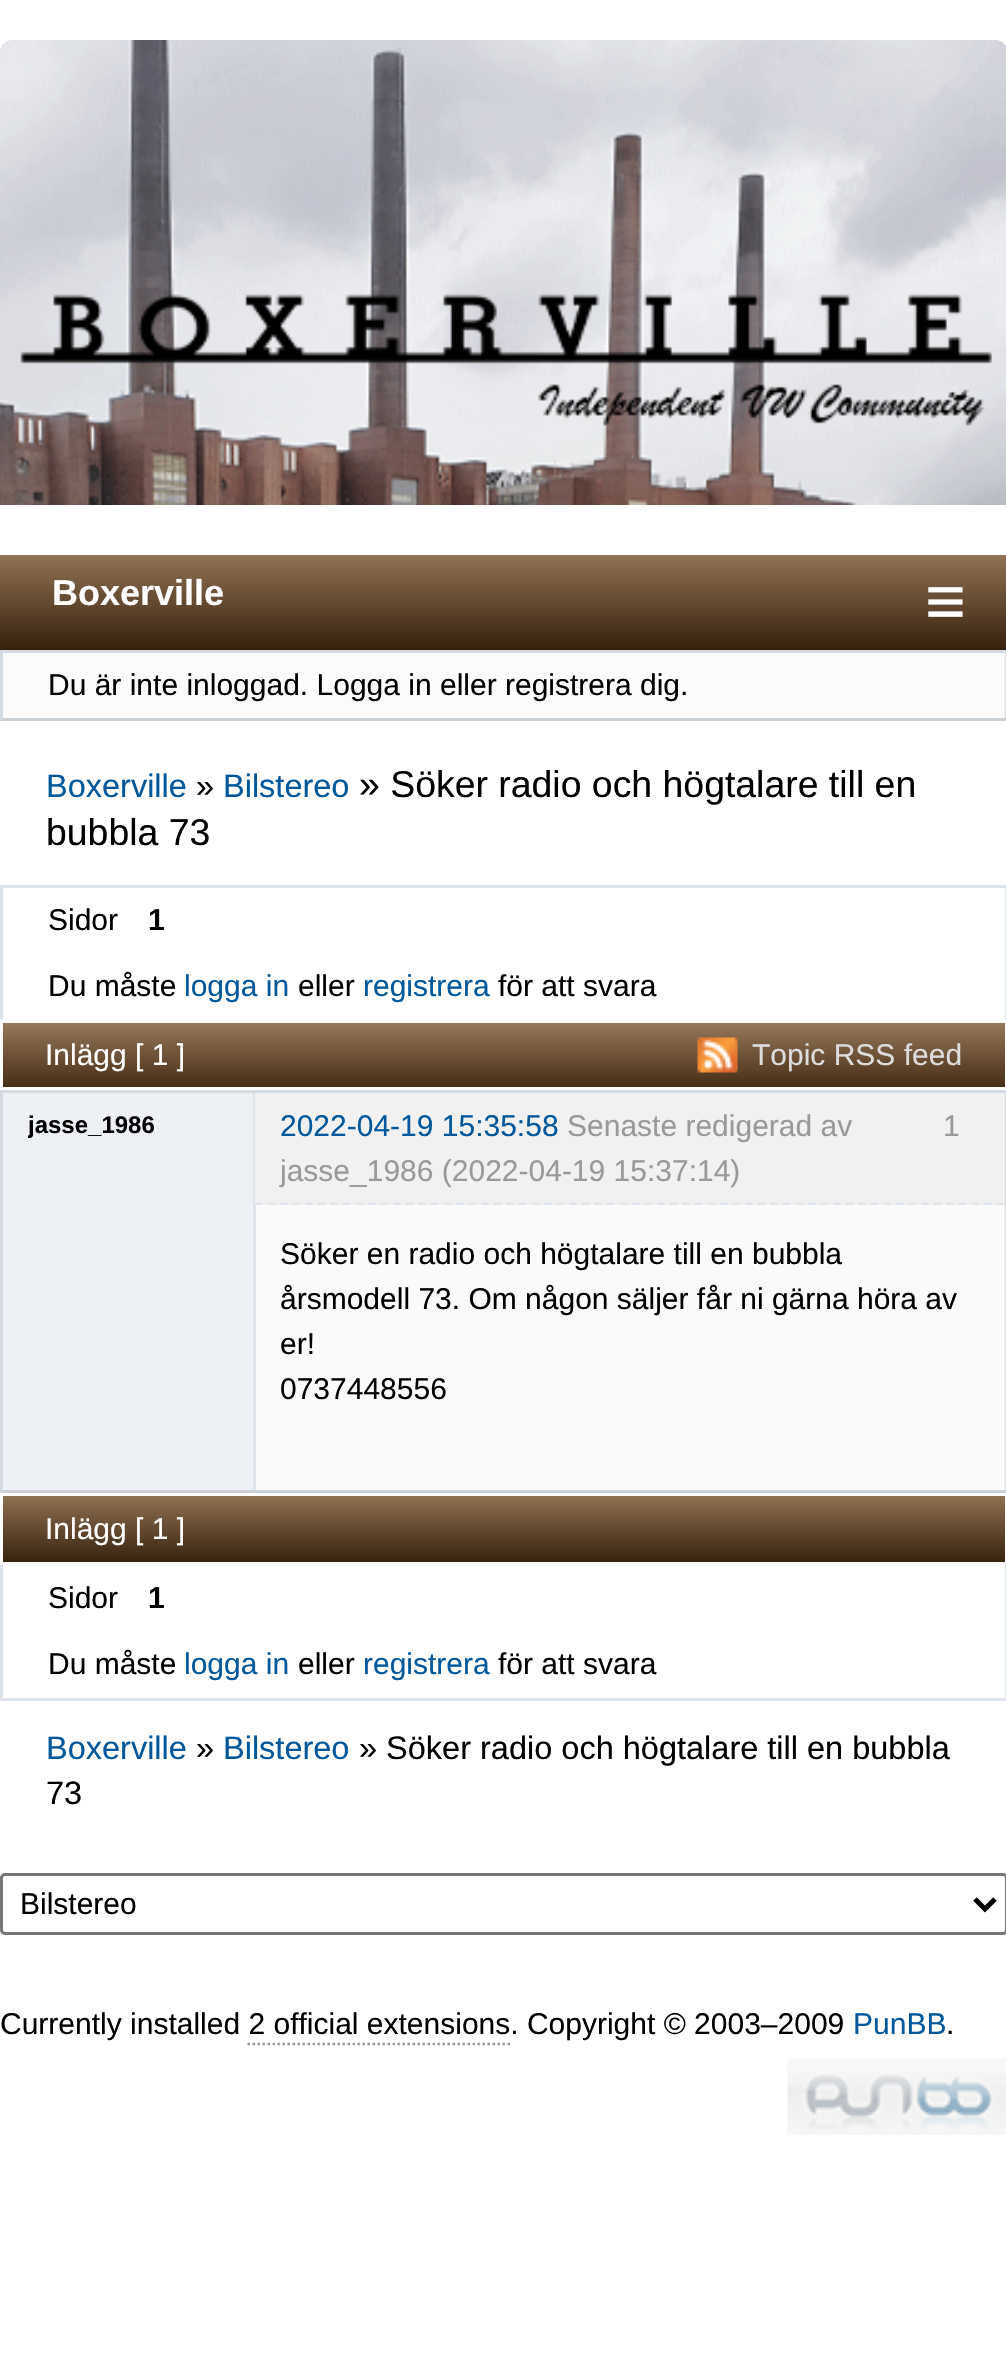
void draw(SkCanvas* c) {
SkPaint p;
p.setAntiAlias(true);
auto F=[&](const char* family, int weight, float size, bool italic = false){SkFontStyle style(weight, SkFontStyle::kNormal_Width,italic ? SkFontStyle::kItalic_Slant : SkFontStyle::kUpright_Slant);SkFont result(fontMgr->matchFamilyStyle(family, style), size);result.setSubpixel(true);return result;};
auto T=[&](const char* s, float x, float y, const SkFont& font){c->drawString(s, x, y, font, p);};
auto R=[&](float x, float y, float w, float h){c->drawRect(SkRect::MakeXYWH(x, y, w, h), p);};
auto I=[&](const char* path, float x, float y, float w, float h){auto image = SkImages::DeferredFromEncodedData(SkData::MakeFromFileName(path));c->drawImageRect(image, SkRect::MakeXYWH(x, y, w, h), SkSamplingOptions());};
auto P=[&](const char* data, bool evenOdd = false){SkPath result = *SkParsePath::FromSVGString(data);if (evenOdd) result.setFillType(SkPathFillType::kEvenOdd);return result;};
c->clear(0xffffffff);
I("1.png",0,40,1006,465);
{
const SkColor colors[] = {0xff36210d,0xff917253};
const float stops[] = {0,1};
const SkPoint ends[] = {{504,650}, {504,555}};
p.setShader(SkGradientShader::MakeLinear(ends, colors, stops, 2, SkTileMode::kClamp));
p.setAlpha(255);
}
R(0,555,1006,95);
auto f1 = F("Liberation Sans",700,36);
p.setShader(nullptr);
p.setColor(0xffffffff);
T("Boxerville",52,605,f1);
auto f2 = F("Liberation Sans",400,70);
T("≡",925,625,f2);
p.setColor(0xfffbfbfb);
R(3,653,1002,65);
p.setColor(0xffd3dae1);
R(0,650,1006,3);
R(1005,650,1,70);
p.setColor(0xffcbd1d8);
R(0,718,1006,3);
p.setColor(0xffd3dae1);
R(0,650,3,70);
auto f3 = F("Liberation Sans",400,30);
p.setColor(0xff000000);
T("Du är inte inloggad. Logga in eller registrera dig.",48,695,f3);
auto f4 = F("Liberation Sans",400,32.5);
p.setColor(0xff00579c);
T("Boxerville",46,797,f4);
p.setColor(0xff000000);
T("»",196,797,f4);
p.setColor(0xff00579c);
T("Bilstereo",223,797,f4);
auto f5 = F("Liberation Sans",400,37.4);
p.setColor(0xff000000);
T("» Söker radio och högtalare till en",359,797,f5);
T("bubbla 73",46,845,f5);
p.setColor(0xffdde4eb);
R(0,885,1006,3);
R(1005,885,1,135);
R(0,885,3,135);
p.setColor(0xff000000);
T("Sidor",48,930,f3);
auto f6 = F("Liberation Sans",700,30);
T("1",148,930,f6);
T("Du måste",48,996,f3);
p.setColor(0xff00579c);
T("logga in",184,996,f3);
p.setColor(0xff000000);
T("eller",298,996,f3);
p.setColor(0xff00579c);
T("registrera",363,996,f3);
p.setColor(0xff000000);
T("för att svara",498,996,f3);
{
const SkColor colors[] = {0xff452c14,0xff96785a};
const float stops[] = {0,1};
const SkPoint ends[] = {{504,1088}, {504,1023}};
p.setShader(SkGradientShader::MakeLinear(ends, colors, stops, 2, SkTileMode::kClamp));
p.setAlpha(255);
}
R(3,1023,1002,64);
p.setShader(nullptr);
p.setColor(0xffffffff);
T("Inlägg [ 1 ]",45,1065,f3);
I("2.png",697,1037,41,36);
p.setColor(0xffdddddd);
T("Topic RSS feed",752,1065,f3);
p.setColor(0xffd3dae1);
R(0,1090,1006,3);
R(1005,1090,1,403);
p.setColor(0xffcbd1d8);
R(0,1490,1006,3);
p.setColor(0xffd3dae1);
R(0,1090,3,403);
p.setColor(0xffedf1f5);
R(3,1093,250,397);
p.setColor(0xffdde4eb);
R(253,1093,2,112);
p.setColor(0xfff1f1f1);
R(255,1093,750,112);
p.setStroke(true);
p.setStrokeWidth(2.5);
p.setColor(0xffdde4eb);
p.setPathEffect(SkDashPathEffect::Make({{7.5f,5.07f}}, 0));
c->drawPath(P("M255 1204h750"),p);
p.setPathEffect(nullptr);
c->save();
c->clipRect(SkRect::MakeXYWH(28,1103,200,45));
auto f7 = F("Liberation Sans",700,24);
p.setStroke(false);
p.setColor(0xff000000);
T("jasse_1986",28,1133,f7);
c->restore();
p.setColor(0xff00579c);
T("2022-04-19 15:35:58",280,1136,f3);
p.setColor(0xff999999);
T("Senaste redigerad av",567,1136,f3);
T("1",943,1136,f3);
T("jasse_1986 (2022-04-19 15:37:14)",280,1181,f3);
p.setColor(0xfffafafa);
R(256,1205,749,285);
p.setColor(0xffdde4eb);
R(253,1205,3,285);
p.setColor(0xff000000);
T("Söker en radio och högtalare till en bubbla",280,1264,f3);
T("årsmodell 73. Om någon säljer får ni gärna höra av",280,1309,f3);
T("er!",280,1354,f3);
T("0737448556",280,1399,f3);
{
const SkColor colors[] = {0xff36210d,0xff917253};
const float stops[] = {0,1};
const SkPoint ends[] = {{504,1563}, {504,1495}};
p.setShader(SkGradientShader::MakeLinear(ends, colors, stops, 2, SkTileMode::kClamp));
p.setAlpha(255);
}
R(3,1496,1002,66);
p.setShader(nullptr);
p.setColor(0xffffffff);
T("Inlägg [ 1 ]",45,1539,f3);
p.setColor(0xffdde4eb);
R(1005,1565,1,135);
R(0,1698,1006,3);
R(0,1565,3,135);
p.setColor(0xff000000);
T("Sidor",48,1608,f3);
T("1",148,1608,f6);
T("Du måste",48,1674,f3);
p.setColor(0xff00579c);
T("logga in",184,1674,f3);
p.setColor(0xff000000);
T("eller",298,1674,f3);
p.setColor(0xff00579c);
T("registrera",363,1674,f3);
p.setColor(0xff000000);
T("för att svara",498,1674,f3);
p.setColor(0xff00579c);
T("Boxerville",46,1759,f4);
p.setColor(0xff000000);
T("»",196,1759,f4);
p.setColor(0xff00579c);
T("Bilstereo",223,1759,f4);
p.setColor(0xff000000);
T("» Söker radio och högtalare till en bubbla",359,1759,f4);
T("73",46,1804,f4);
p.setStroke(true);
p.setStrokeWidth(3);
p.setColor(0xff767676);
c->drawRoundRect(SkRect::MakeXYWH(1.5,1874.5,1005,59),3.5,3.5,p);
p.setStrokeWidth(5);
p.setColor(0xff000000);
c->drawPath(P("M975 1899l10 10l10-10"),p);
p.setStroke(false);
T("Bilstereo",20,1914,f3);
T("Currently installed 2 official extensions. Copyright © 2003–2009",0,2034,f3);
p.setColor(0xff00579c);
T("PunBB",853,2034,f3);
p.setColor(0xff000000);
T(".",946,2034,f3);
p.setStroke(true);
p.setStrokeWidth(2.5);
p.setColor(0xff999999);
p.setPathEffect(SkDashPathEffect::Make({{2.5f,2.5f}}, 0));
c->drawPath(P("M247.5 2044h262.5"),p);
p.setPathEffect(nullptr);
I("3.png",787,2058,219,77);
}
